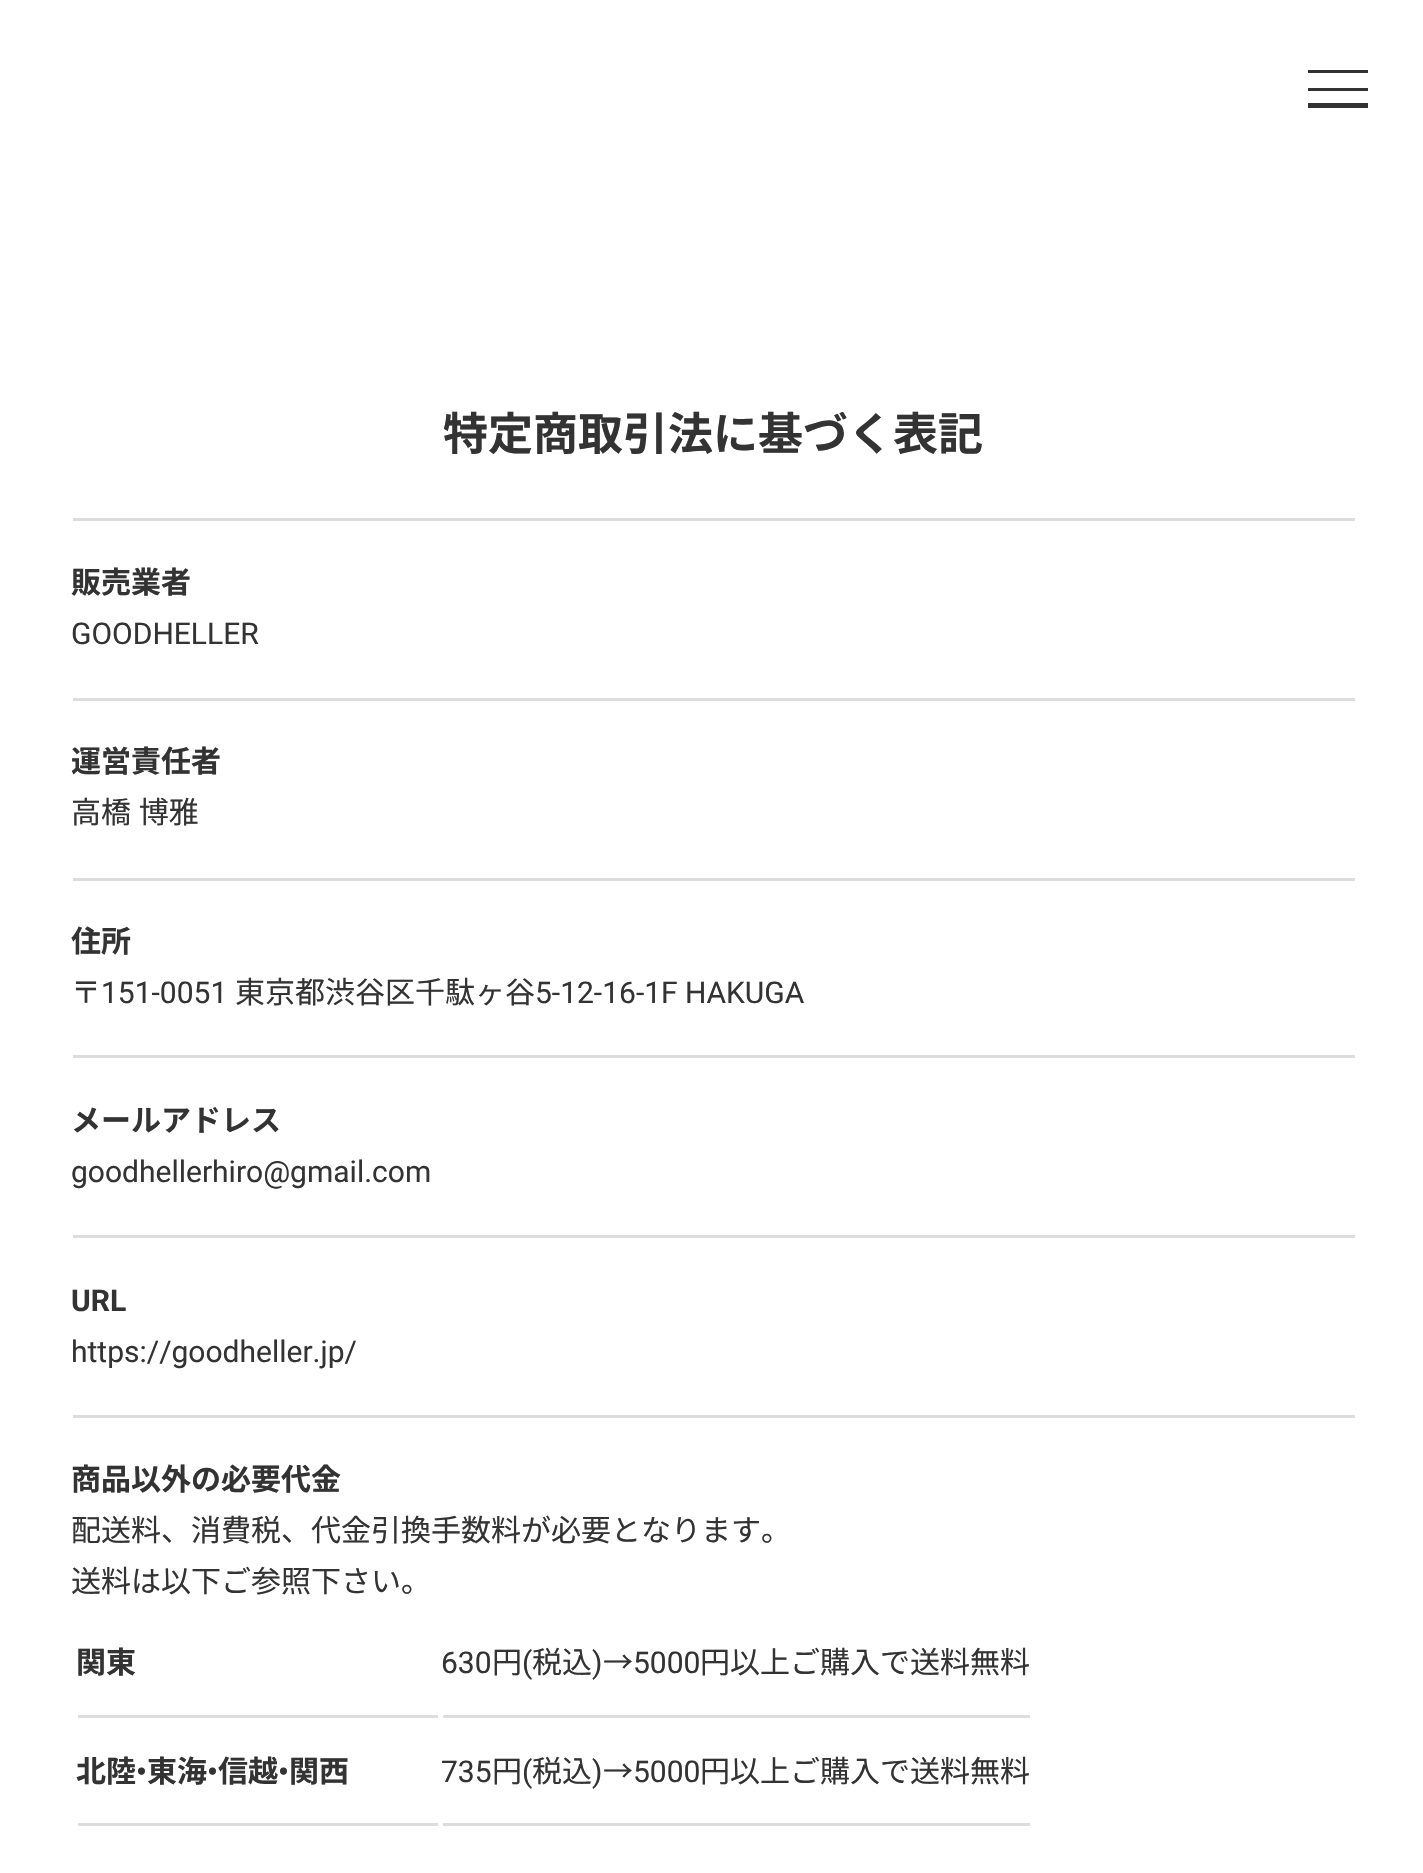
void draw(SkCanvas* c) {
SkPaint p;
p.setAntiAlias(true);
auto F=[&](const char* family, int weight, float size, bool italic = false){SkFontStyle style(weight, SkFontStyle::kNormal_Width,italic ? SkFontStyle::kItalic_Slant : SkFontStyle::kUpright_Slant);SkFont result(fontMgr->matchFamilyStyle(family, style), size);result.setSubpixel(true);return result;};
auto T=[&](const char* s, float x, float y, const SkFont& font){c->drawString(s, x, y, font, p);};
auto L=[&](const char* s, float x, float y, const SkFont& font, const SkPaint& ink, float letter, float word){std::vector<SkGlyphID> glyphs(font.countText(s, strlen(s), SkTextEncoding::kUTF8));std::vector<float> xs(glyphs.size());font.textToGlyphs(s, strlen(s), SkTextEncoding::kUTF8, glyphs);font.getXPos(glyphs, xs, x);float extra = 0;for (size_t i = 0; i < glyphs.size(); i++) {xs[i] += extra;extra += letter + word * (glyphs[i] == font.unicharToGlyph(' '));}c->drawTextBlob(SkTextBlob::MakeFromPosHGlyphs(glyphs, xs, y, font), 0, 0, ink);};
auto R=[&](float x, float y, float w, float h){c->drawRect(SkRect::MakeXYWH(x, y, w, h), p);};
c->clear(0xffffffff);
p.setColor(0xff333333);
R(1308,70,60,3);
R(1308,88,60,3);
R(1308,103,60,5);
auto f1 = F("Noto Sans JP",700,45);
T("特定商取引法に基づく表記",443,450,f1);
p.setColor(0xffdddddd);
R(73,518,1282,3);
auto f2 = F("Noto Sans JP",700,30);
p.setColor(0xff333333);
T("販売業者",71,593,f2);
p.setColor(0xffdddddd);
R(73,698,1282,3);
auto f3 = F("Roboto",400,30);
p.setColor(0xff333333);
T("GOODHELLER",71,644,f3);
T("運営責任者",71,772,f2);
p.setColor(0xffdddddd);
R(73,878,1282,3);
auto f4 = F("Noto Sans JP",400,30);
p.setColor(0xff333333);
L("高橋 博雅",71,823,f4,p,0,1);
T("住所",71,952,f2);
p.setColor(0xffdddddd);
R(73,1055,1282,3);
p.setColor(0xff333333);
T("〒",71,1003,f4);
T("151-0051",101,1003,f3);
T("東京都渋谷区千駄ヶ谷",235,1003,f4);
T("5-12-16-1F HAKUGA",535,1003,f3);
T("メールアドレス",71,1131,f2);
p.setColor(0xffdddddd);
R(73,1235,1282,3);
p.setColor(0xff333333);
T("goodhellerhiro@gmail.com",71,1182,f3);
auto f5 = F("Roboto",700,30);
T("URL",71,1311,f5);
p.setColor(0xffdddddd);
R(73,1415,1282,3);
p.setColor(0xff333333);
T("https://goodheller.jp/",71,1362,f3);
T("商品以外の必要代金",71,1490,f2);
T("配送料、消費税、代金引換手数料が必要となります。",71,1541,f4);
T("送料は以下ご参照下さい。",71,1592,f4);
p.setColor(0xffdddddd);
R(78,1715,360,3);
p.setColor(0xff333333);
T("関東",76,1673,f2);
p.setColor(0xffdddddd);
R(443,1715,587,3);
p.setColor(0xff333333);
T("630",441,1673,f3);
T("円",492,1673,f4);
T("(",522,1673,f3);
T("税込",532,1673,f4);
T(")",592,1673,f3);
T("→",603,1673,f4);
T("5000",633,1673,f3);
T("円以上ご購入で送料無料",700,1673,f4);
p.setColor(0xffdddddd);
R(78,1823,360,3);
p.setColor(0xff333333);
T("北陸",76,1782,f2);
T("•",136,1782,f5);
T("東海",147,1782,f2);
T("•",207,1782,f5);
T("信越",218,1782,f2);
T("•",278,1782,f5);
T("関西",289,1782,f2);
p.setColor(0xffdddddd);
R(443,1823,587,3);
p.setColor(0xff333333);
T("735",441,1782,f3);
T("円",492,1782,f4);
T("(",522,1782,f3);
T("税込",532,1782,f4);
T(")",592,1782,f3);
T("→",603,1782,f4);
T("5000",633,1782,f3);
T("円以上ご購入で送料無料",700,1782,f4);
}
